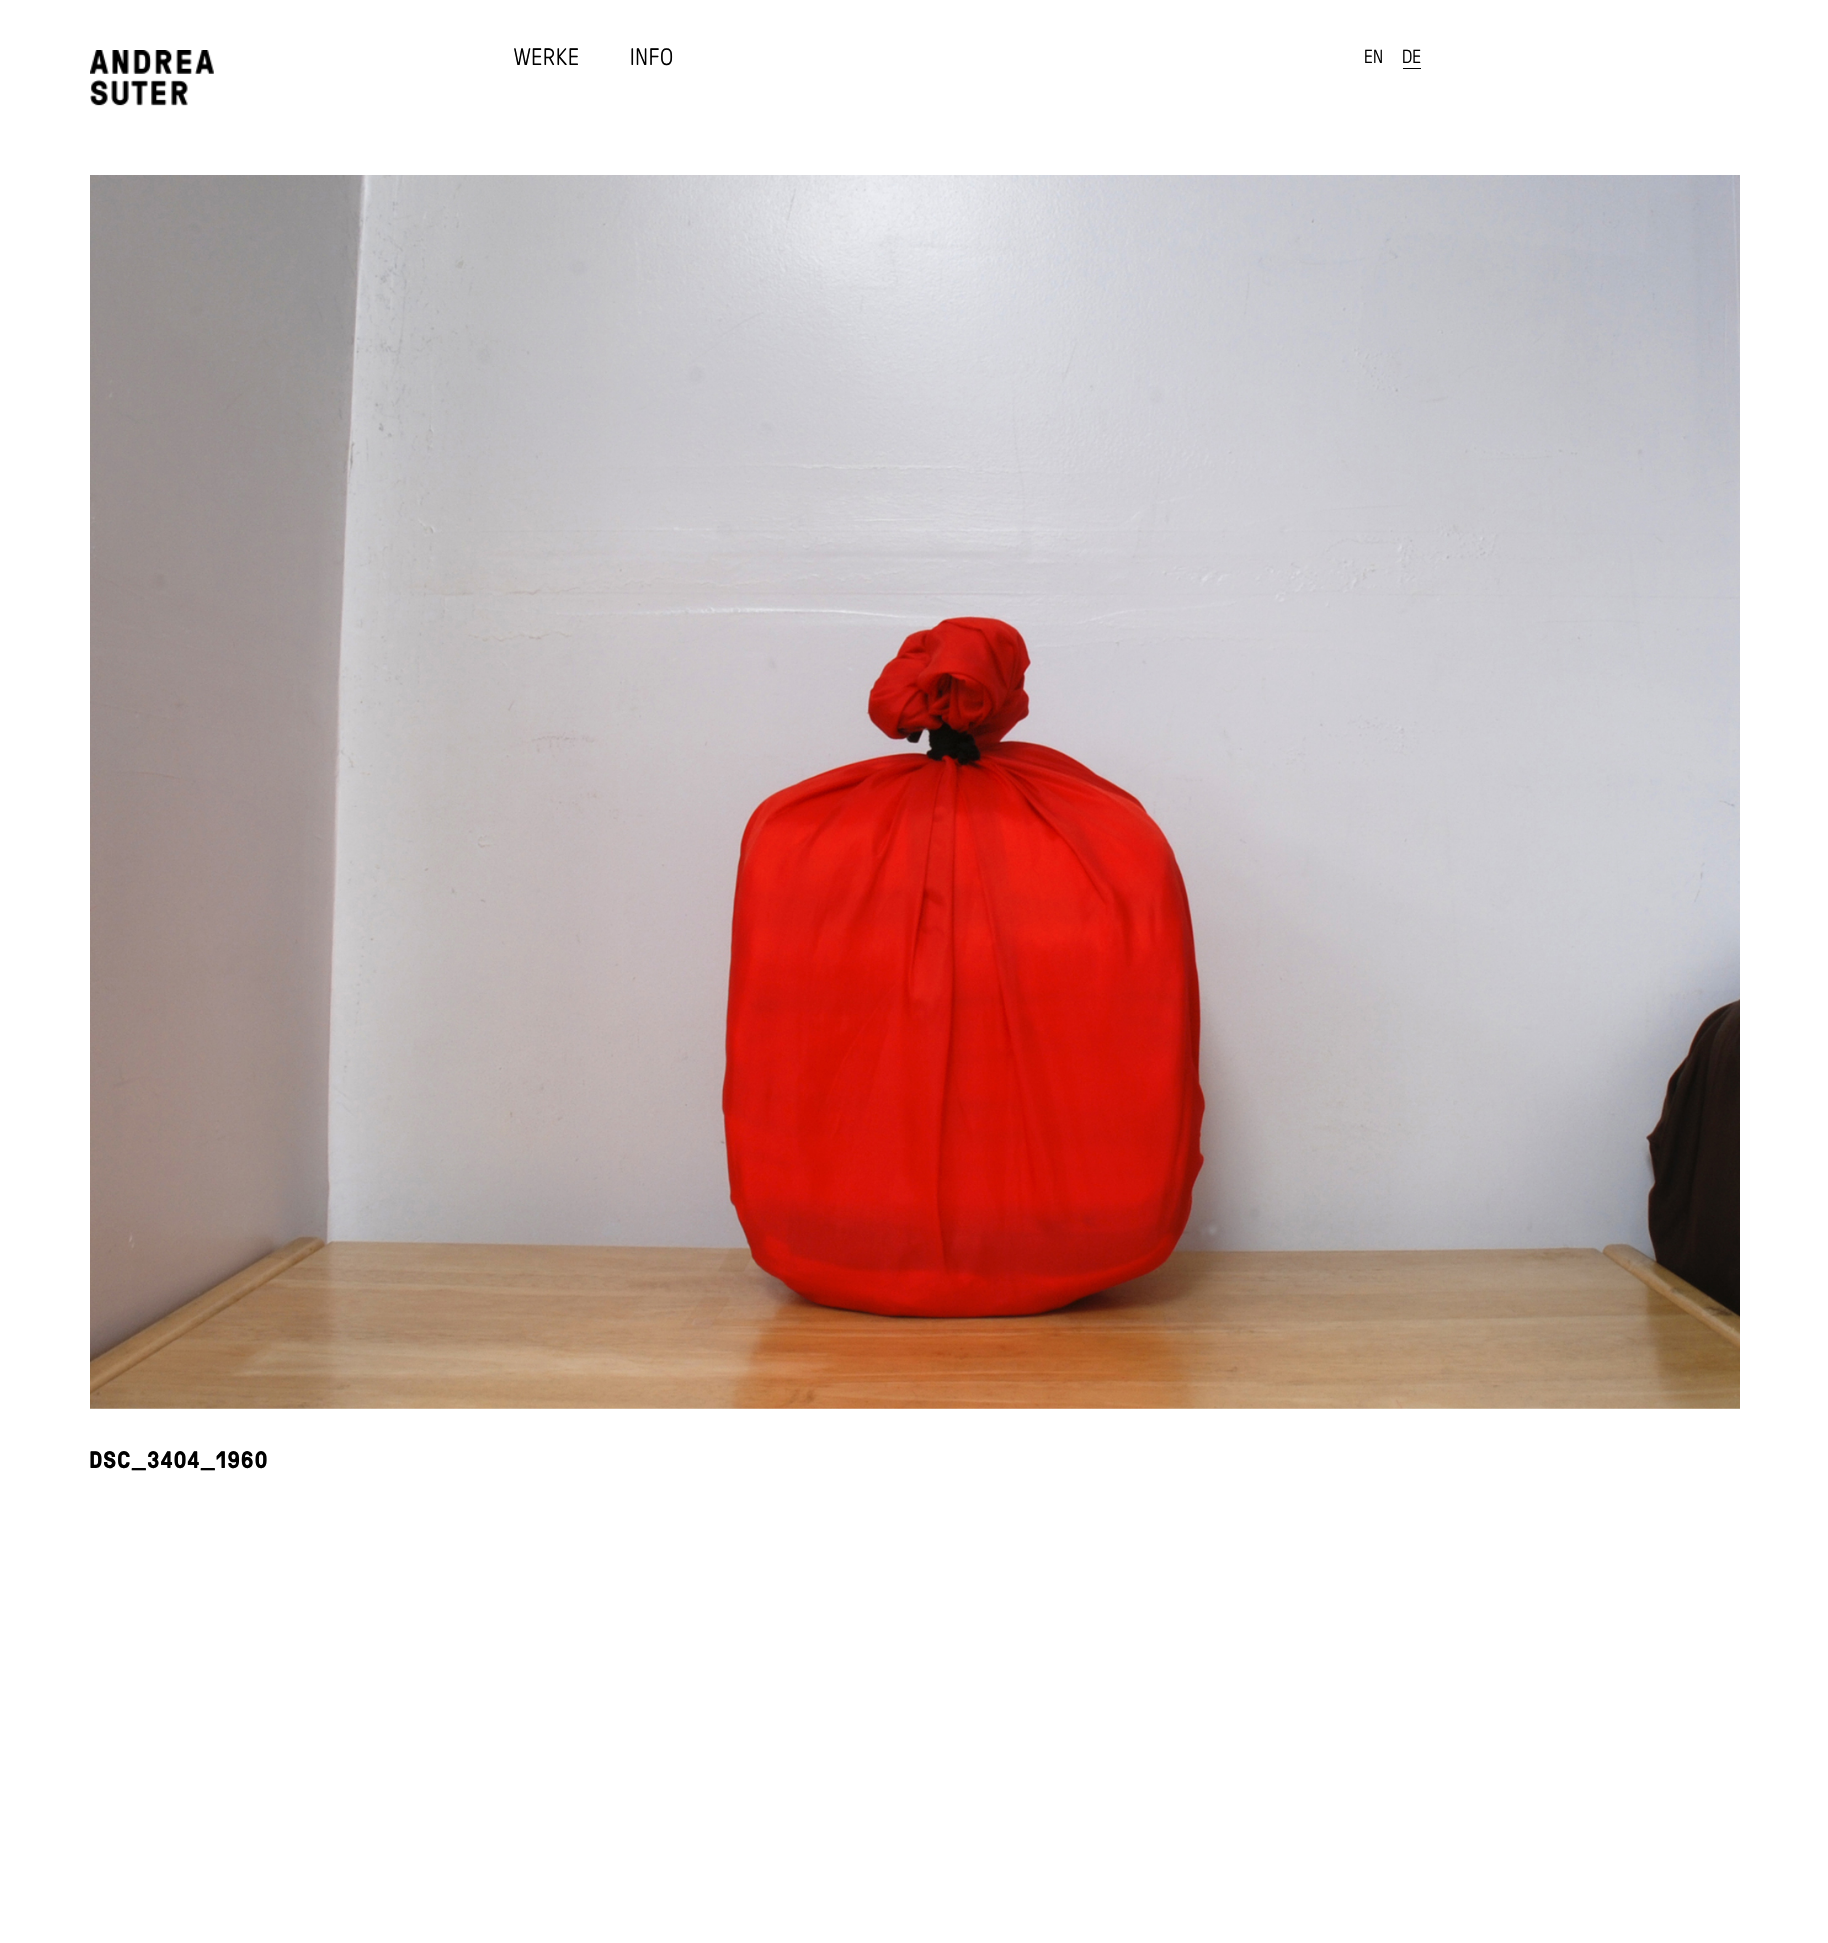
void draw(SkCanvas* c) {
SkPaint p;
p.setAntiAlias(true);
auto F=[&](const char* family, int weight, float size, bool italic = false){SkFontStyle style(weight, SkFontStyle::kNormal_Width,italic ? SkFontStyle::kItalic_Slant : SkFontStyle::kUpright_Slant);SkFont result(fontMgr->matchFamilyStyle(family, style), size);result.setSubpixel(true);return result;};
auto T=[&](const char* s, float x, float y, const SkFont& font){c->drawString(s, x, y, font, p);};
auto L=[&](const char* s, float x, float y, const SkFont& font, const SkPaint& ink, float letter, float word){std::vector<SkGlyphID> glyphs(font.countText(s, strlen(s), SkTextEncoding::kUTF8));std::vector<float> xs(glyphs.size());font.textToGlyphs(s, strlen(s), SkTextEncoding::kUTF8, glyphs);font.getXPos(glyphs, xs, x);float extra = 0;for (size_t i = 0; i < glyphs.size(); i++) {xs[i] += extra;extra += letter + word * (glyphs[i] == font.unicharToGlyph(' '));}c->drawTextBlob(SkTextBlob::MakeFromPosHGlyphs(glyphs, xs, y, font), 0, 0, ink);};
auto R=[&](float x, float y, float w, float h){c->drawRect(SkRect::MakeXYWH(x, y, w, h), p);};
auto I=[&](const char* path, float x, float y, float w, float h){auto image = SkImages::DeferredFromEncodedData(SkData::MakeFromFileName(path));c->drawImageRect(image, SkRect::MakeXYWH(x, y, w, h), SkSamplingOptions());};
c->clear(0xffffffff);
I("1.png",90,50,124,56);
auto f1 = F("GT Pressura",300,23.75);
p.setColor(0xff000000);
L("WERKE",514,65,f1,p,.75,0);
L("INFO",630,65,f1,p,.75,0);
auto f2 = F("GT Pressura",300,19);
T("EN",1364,63,f2);
T("DE",1402,63,f2);
R(1403,68,18,1);
I("2.png",90,175,1650,1234);
auto f3 = F("GT Pressura",700,23.75);
L("DSC_3404_1960",89,1468,f3,p,.75,0);
}
